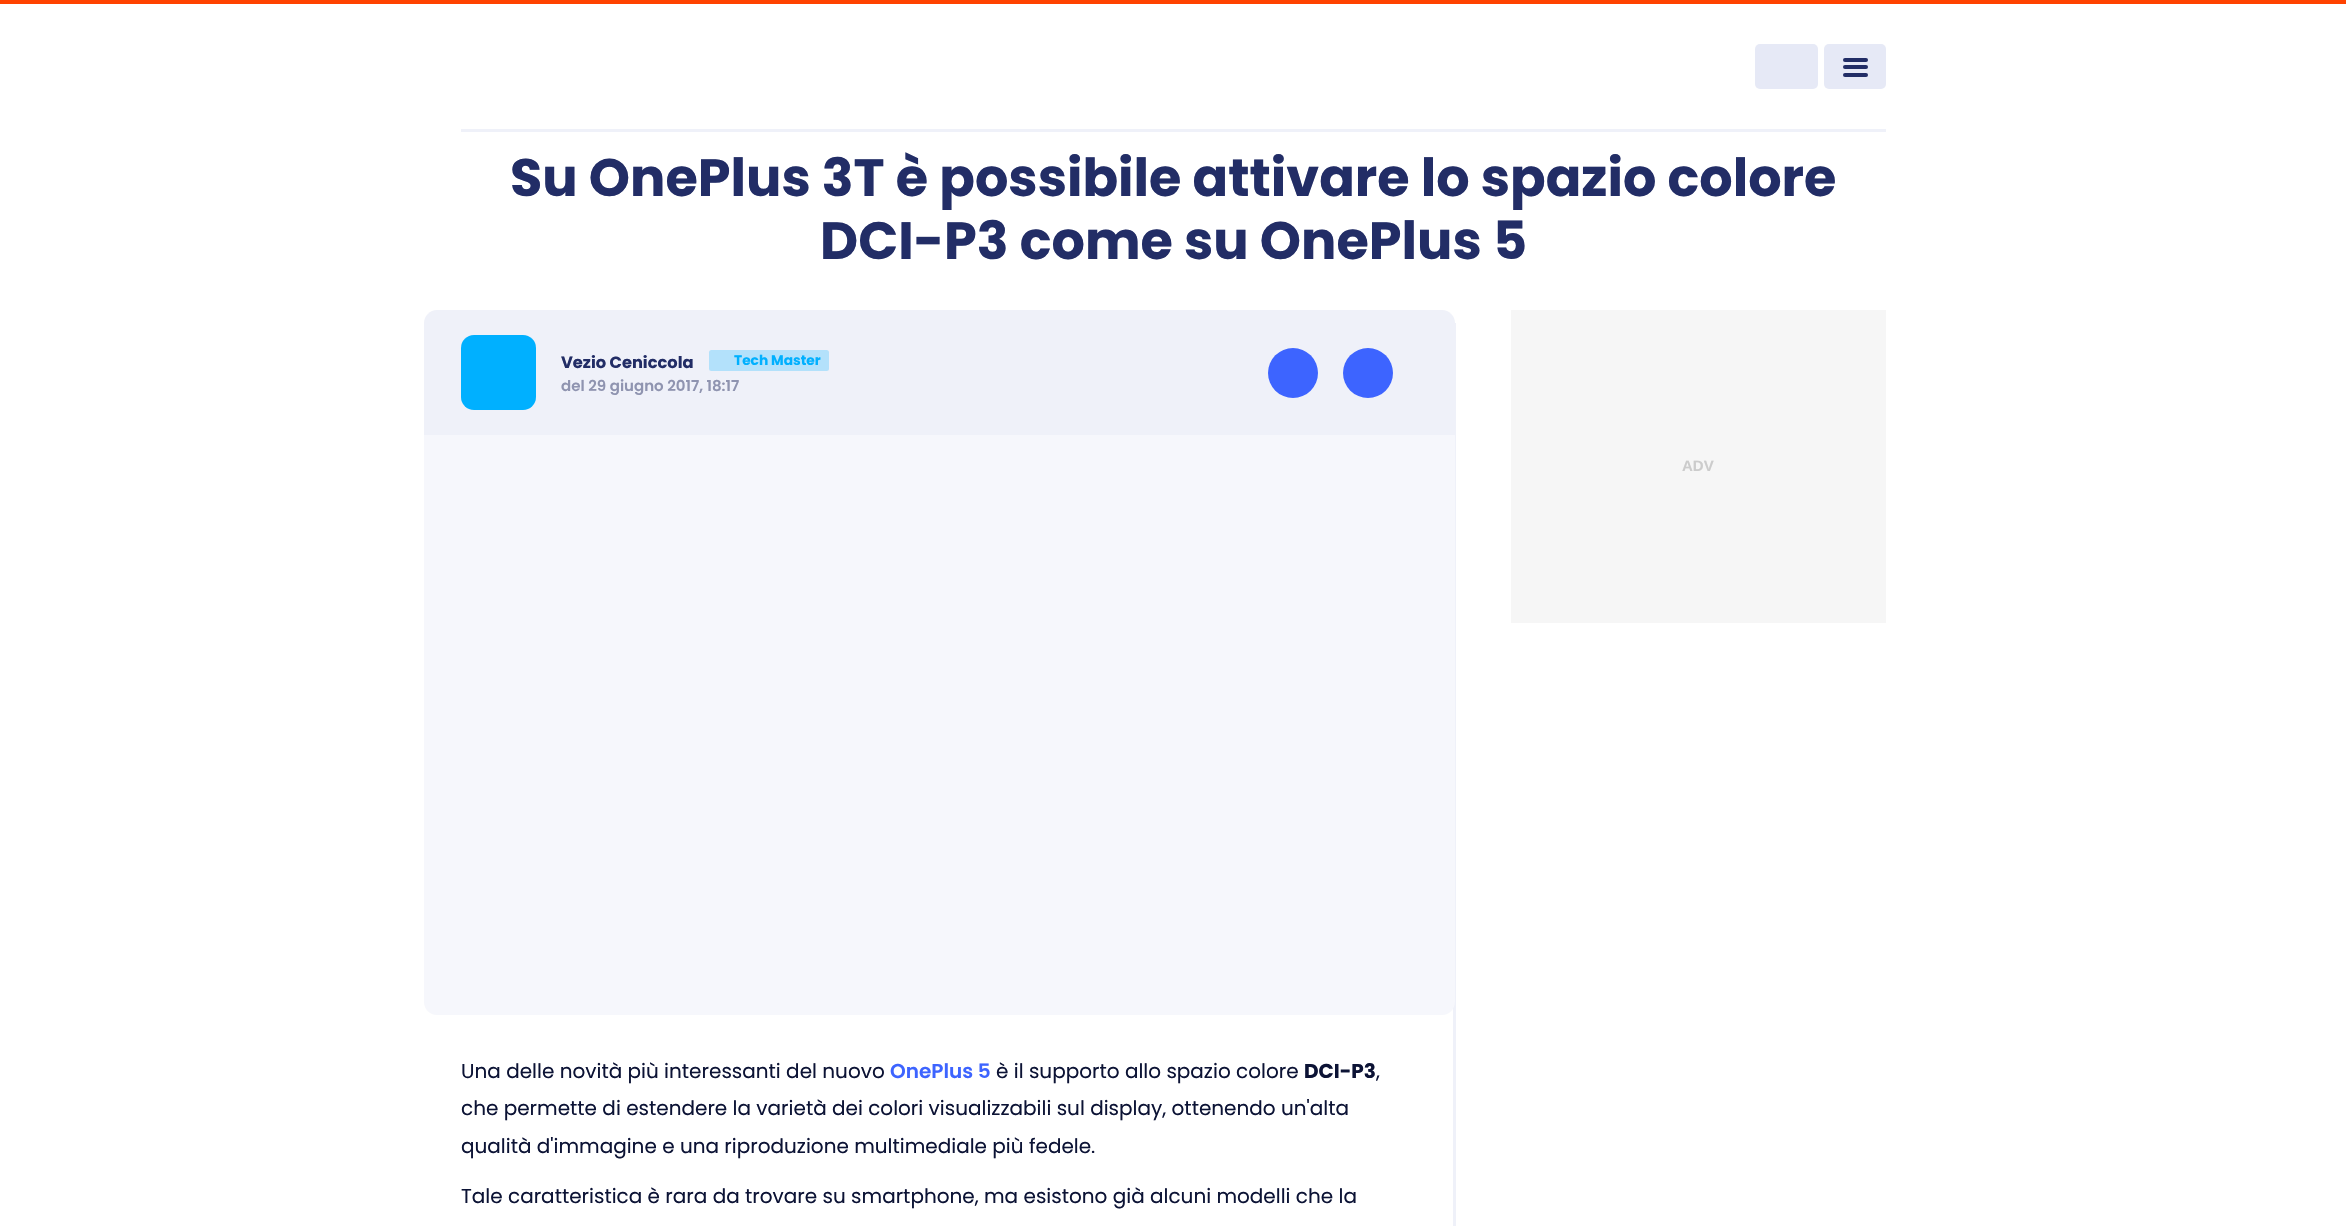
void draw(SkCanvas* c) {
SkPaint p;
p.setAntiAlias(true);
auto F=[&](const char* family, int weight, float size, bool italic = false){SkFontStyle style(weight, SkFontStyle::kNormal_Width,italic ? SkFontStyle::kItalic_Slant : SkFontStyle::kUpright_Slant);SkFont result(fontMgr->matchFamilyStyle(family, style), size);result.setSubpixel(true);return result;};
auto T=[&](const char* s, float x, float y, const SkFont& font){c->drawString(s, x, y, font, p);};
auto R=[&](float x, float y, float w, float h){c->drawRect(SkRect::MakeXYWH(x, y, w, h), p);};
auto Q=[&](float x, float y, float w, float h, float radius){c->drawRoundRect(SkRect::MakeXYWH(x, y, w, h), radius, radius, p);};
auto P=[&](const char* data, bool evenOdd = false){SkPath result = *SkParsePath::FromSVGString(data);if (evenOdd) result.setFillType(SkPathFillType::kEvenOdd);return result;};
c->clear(0xffffffff);
p.setColor(0xffff4200);
R(0,0,2346,4);
p.setColor(0xffe6e9f6);
Q(1755,44,63,45,5);
Q(1824,44,62,45,5);
p.setColor(0xff222d66);
Q(1843,58,25,4,2);
Q(1843,65,25,4,2);
Q(1843,73,25,4,2);
p.setColor(0xffeff1f9);
R(461,129,1425,3);
auto f1 = F("Poppins",700,52.5);
p.setColor(0xff222d66);
T("Su OnePlus 3T è possibile attivare lo spazio colore",510,196,f1);
T("DCI-P3 come su OnePlus 5",820,259,f1);
p.setColor(0xffeff1f9);
R(1453,323,3,903);
c->drawPath(P("M437 310h1005c7 0 13 6 13 13v112h-1031v-112c0-7 6-13 13-13z"),p);
p.setColor(0xff00b0ff);
Q(461,335,75,75,13);
auto f2 = F("Poppins",700,16.25);
p.setColor(0xff222d66);
T("Vezio Ceniccola",561,368,f2);
p.setColor(0xffb3e1fb);
Q(709,350,120,21,2.5);
auto f3 = F("Poppins",700,13.75);
p.setColor(0xff00b0ff);
T("Tech Master",734,365,f3);
auto f4 = F("Poppins",600,15);
p.setColor(0xff8f94b0);
T("del 29 giugno 2017, 18:17",561,391,f4);
p.setColor(0xff3d64ff);
c->drawCircle(1293,373,25,p);
c->drawCircle(1368,373,25,p);
p.setColor(0xfff6f7fc);
c->drawPath(P("M424 435h1031v567c0 7-6 13-13 13h-1005c-7 0-13-6-13-13z"),p);
auto f5 = F("Poppins",400,20);
p.setColor(0xff0c1335);
T("Una delle novità più interessanti del nuovo",461,1078,f5);
auto f6 = F("Poppins",600,20);
p.setColor(0xff3d64ff);
T("OnePlus 5",890,1078,f6);
p.setColor(0xff0c1335);
T("è il supporto allo spazio colore",996,1078,f5);
auto f7 = F("Poppins",700,20);
T("DCI-P3",1304,1078,f7);
T(",",1376,1078,f5);
T("che permette di estendere la varietà dei colori visualizzabili sul display, ottenendo un'alta",461,1115,f5);
T("qualità d'immagine e una riproduzione multimediale più fedele.",461,1153,f5);
T("Tale caratteristica è rara da trovare su smartphone, ma esistono già alcuni modelli che la",461,1203,f5);
p.setColor(0xfff6f6f6);
R(1511,310,375,313);
auto f8 = F("Liberation Sans",700,15);
p.setColor(0xffcccccc);
T("ADV",1682,471,f8);
}
